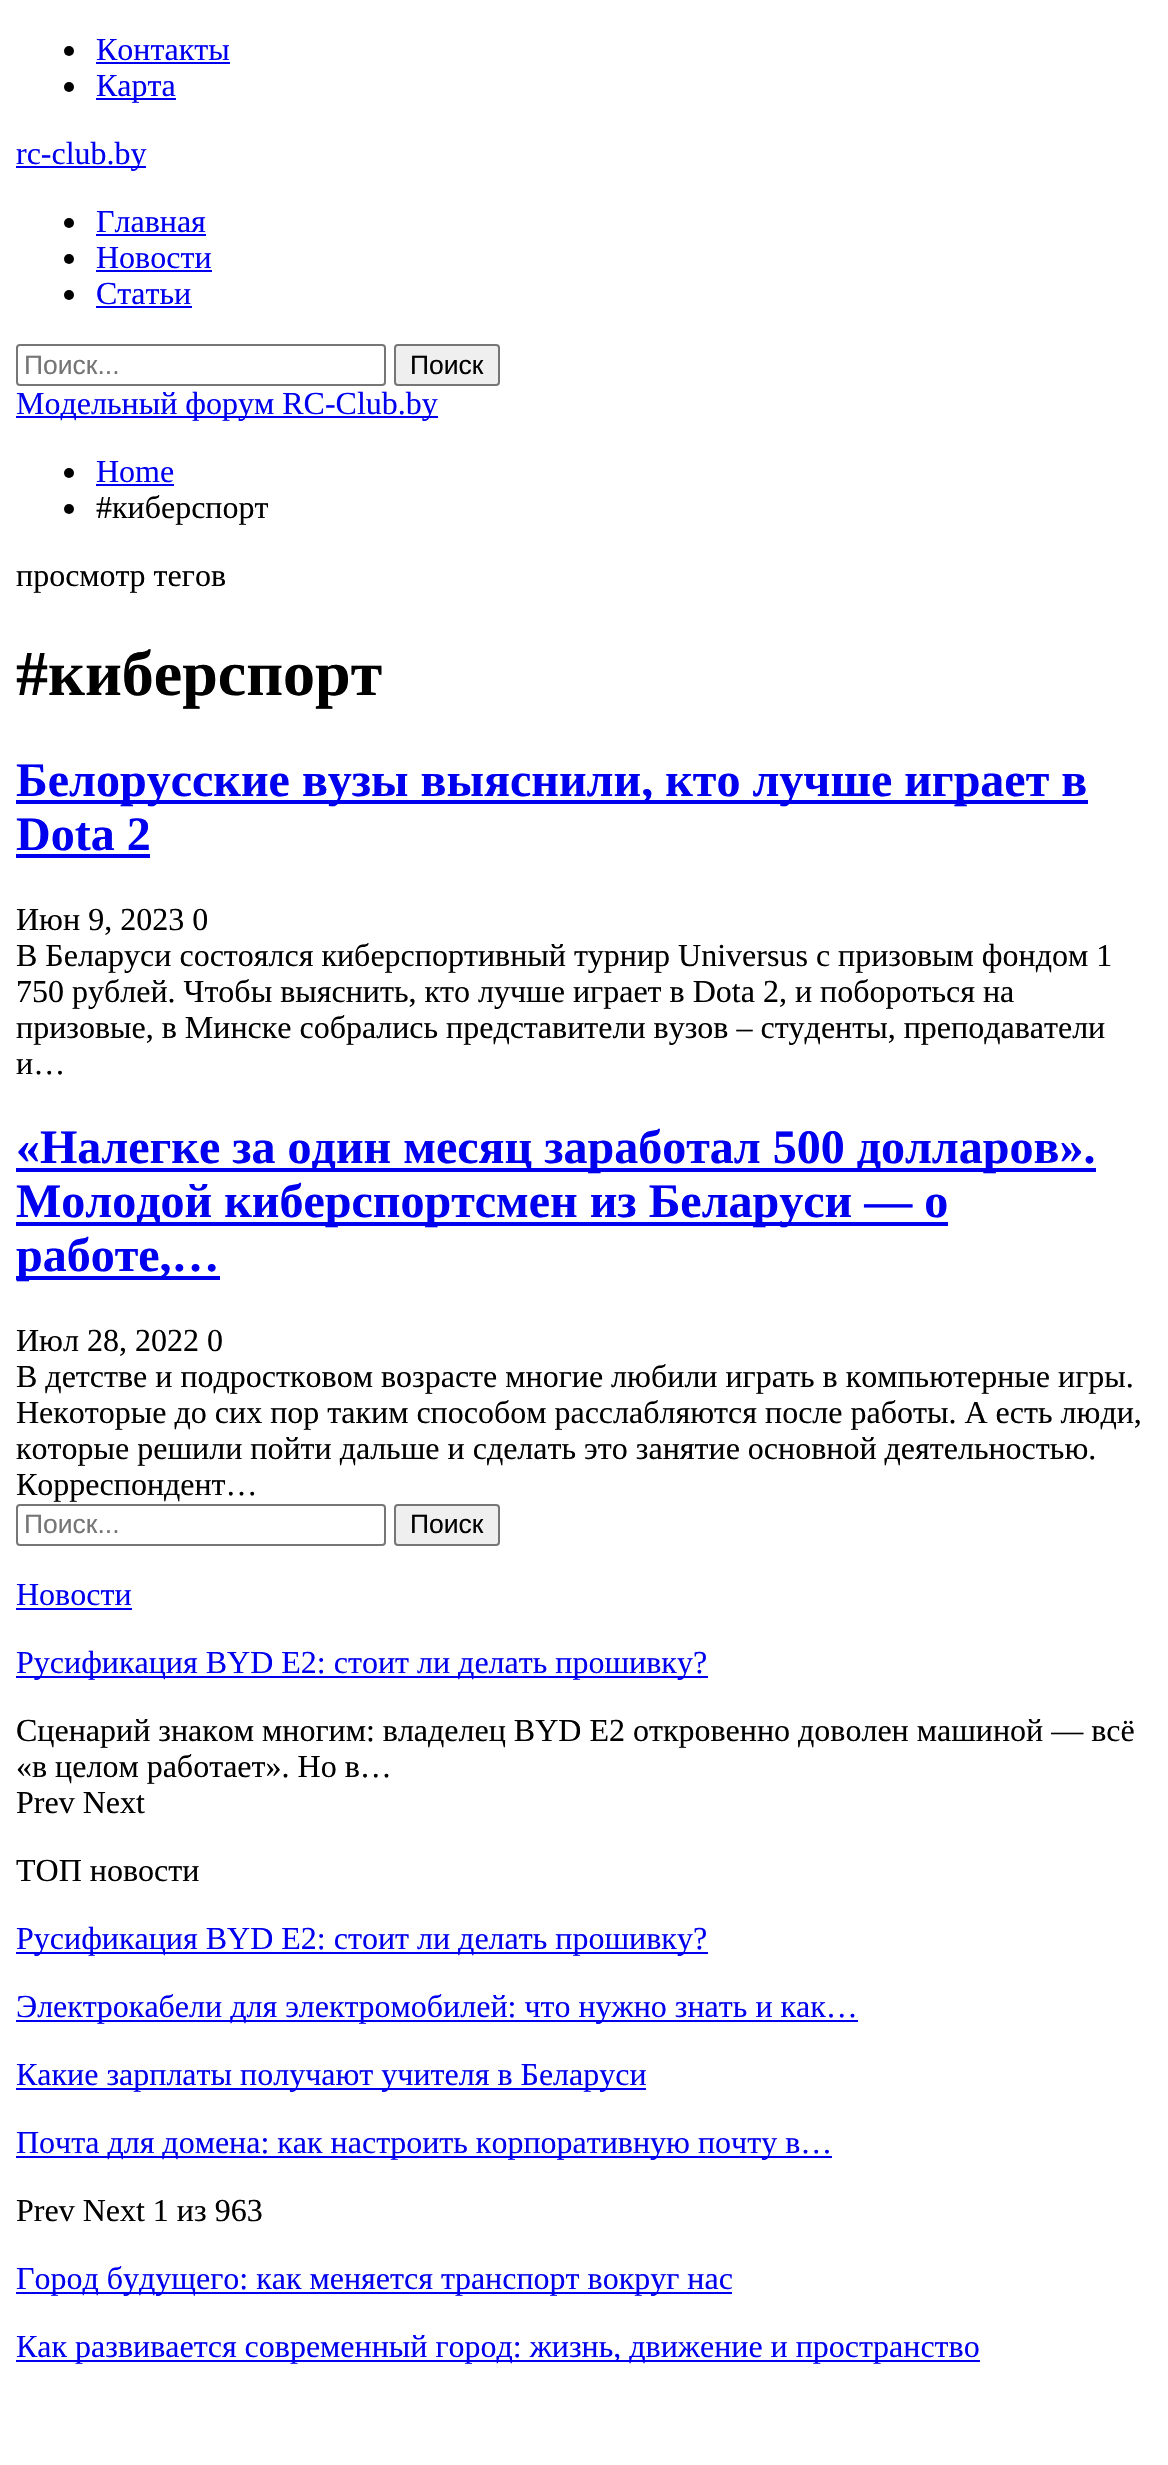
void draw(SkCanvas* c) {
SkPaint p;
p.setAntiAlias(true);
auto F=[&](const char* family, int weight, float size, bool italic = false){SkFontStyle style(weight, SkFontStyle::kNormal_Width,italic ? SkFontStyle::kItalic_Slant : SkFontStyle::kUpright_Slant);SkFont result(fontMgr->matchFamilyStyle(family, style), size);result.setSubpixel(true);return result;};
auto T=[&](const char* s, float x, float y, const SkFont& font){c->drawString(s, x, y, font, p);};
auto R=[&](float x, float y, float w, float h){c->drawRect(SkRect::MakeXYWH(x, y, w, h), p);};
c->clear(0xffffffff);
p.setColor(0xff000000);
c->drawCircle(69,51,5,p);
auto f1 = F("Liberation Serif",400,32);
p.setColor(0xff0000ee);
T("Контакты",96,60,f1);
R(96,62,134,2);
p.setColor(0xff000000);
c->drawCircle(69,87,5,p);
p.setColor(0xff0000ee);
R(96,98,80,2);
T("Карта",96,96,f1);
R(16,166,130,2);
T("rc-club.by",16,164,f1);
p.setColor(0xff000000);
c->drawCircle(69,223,5,p);
p.setColor(0xff0000ee);
T("Главная",96,232,f1);
R(96,234,110,2);
p.setColor(0xff000000);
c->drawCircle(69,259,5,p);
p.setColor(0xff0000ee);
T("Новости",96,268,f1);
R(96,270,116,2);
p.setColor(0xff000000);
c->drawCircle(69,295,5,p);
p.setColor(0xff0000ee);
T("Статьи",96,304,f1);
R(96,306,96,2);
p.setStroke(true);
p.setStrokeWidth(2);
p.setColor(0xff767676);
c->drawRoundRect(SkRect::MakeXYWH(17,345,368,40),3,3,p);
auto f2 = F("Liberation Sans",400,26.5);
p.setStroke(false);
p.setColor(0xff757575);
T("Поиск...",24,374,f2);
p.setColor(0xffefefef);
c->drawRoundRect(SkRect::MakeXYWH(395,345,104,40),3,3,p);
p.setStroke(true);
p.setColor(0xff767676);
c->drawRoundRect(SkRect::MakeXYWH(395,345,104,40),3,3,p);
p.setStroke(false);
p.setColor(0xff000000);
T("Поиск",410,374,f2);
p.setColor(0xff0000ee);
R(16,416,422,2);
T("Модельный форум RC-Club.by",16,414,f1);
p.setColor(0xff000000);
c->drawCircle(69,473,5,p);
p.setColor(0xff0000ee);
T("Home",96,482,f1);
R(96,484,78,2);
p.setColor(0xff000000);
c->drawCircle(69,509,5,p);
T("#киберспорт",96,518,f1);
T("просмотр тегов",16,586,f1);
auto f3 = F("Liberation Serif",700,64);
T("#киберспорт",16,695,f3);
p.setColor(0xff0000ee);
R(16,800,1072,4);
auto f4 = F("Liberation Serif",700,48);
T("Белорусские вузы выяснили, кто лучше играет в",16,796,f4);
T("Dota 2",16,850,f4);
R(16,854,134,4);
p.setColor(0xff000000);
T("Июн 9, 2023 0",16,930,f1);
T("В Беларуси состоялся киберспортивный турнир Universus с призовым фондом 1",16,966,f1);
T("750 рублей. Чтобы выяснить, кто лучше играет в Dota 2, и побороться на",16,1002,f1);
T("призовые, в Минске собрались представители вузов – студенты, преподаватели",16,1038,f1);
T("и…",16,1074,f1);
p.setColor(0xff0000ee);
R(16,1168,1080,4);
T("«Налегке за один месяц заработал 500 долларов».",16,1163,f4);
R(16,1222,932,4);
T("Молодой киберспортсмен из Беларуси — о",16,1217,f4);
R(16,1276,204,4);
T("работе,…",16,1271,f4);
p.setColor(0xff000000);
T("Июл 28, 2022 0",16,1351,f1);
T("В детстве и подростковом возрасте многие любили играть в компьютерные игры.",16,1387,f1);
T("Некоторые до сих пор таким способом расслабляются после работы. А есть люди,",16,1423,f1);
T("которые решили пойти дальше и сделать это занятие основной деятельностью.",16,1459,f1);
T("Корреспондент…",16,1495,f1);
p.setStroke(true);
p.setColor(0xff767676);
c->drawRoundRect(SkRect::MakeXYWH(17,1505,368,40),3,3,p);
p.setStroke(false);
p.setColor(0xff757575);
T("Поиск...",24,1533,f2);
p.setColor(0xffefefef);
c->drawRoundRect(SkRect::MakeXYWH(395,1505,104,40),3,3,p);
p.setStroke(true);
p.setColor(0xff767676);
c->drawRoundRect(SkRect::MakeXYWH(395,1505,104,40),3,3,p);
p.setStroke(false);
p.setColor(0xff000000);
T("Поиск",410,1533,f2);
p.setColor(0xff0000ee);
T("Новости",16,1605,f1);
R(16,1608,116,2);
R(16,1676,692,2);
T("Русификация BYD E2: стоит ли делать прошивку?",16,1673,f1);
p.setColor(0xff000000);
T("Сценарий знаком многим: владелец BYD E2 откровенно доволен машиной — всё",16,1741,f1);
T("«в целом работает». Но в…",16,1777,f1);
T("Prev Next",16,1813,f1);
T("ТОП новости",16,1881,f1);
p.setColor(0xff0000ee);
R(16,1952,692,2);
T("Русификация BYD E2: стоит ли делать прошивку?",16,1949,f1);
R(16,2020,842,2);
T("Электрокабели для электромобилей: что нужно знать и как…",16,2017,f1);
R(16,2088,630,2);
T("Какие зарплаты получают учителя в Беларуси",16,2085,f1);
R(16,2156,816,2);
T("Почта для домена: как настроить корпоративную почту в…",16,2153,f1);
p.setColor(0xff000000);
T("Prev Next 1 из 963",16,2221,f1);
p.setColor(0xff0000ee);
R(16,2292,716,2);
T("Город будущего: как меняется транспорт вокруг нас",16,2289,f1);
R(16,2360,964,2);
T("Как развивается современный город: жизнь, движение и пространство",16,2357,f1);
}
